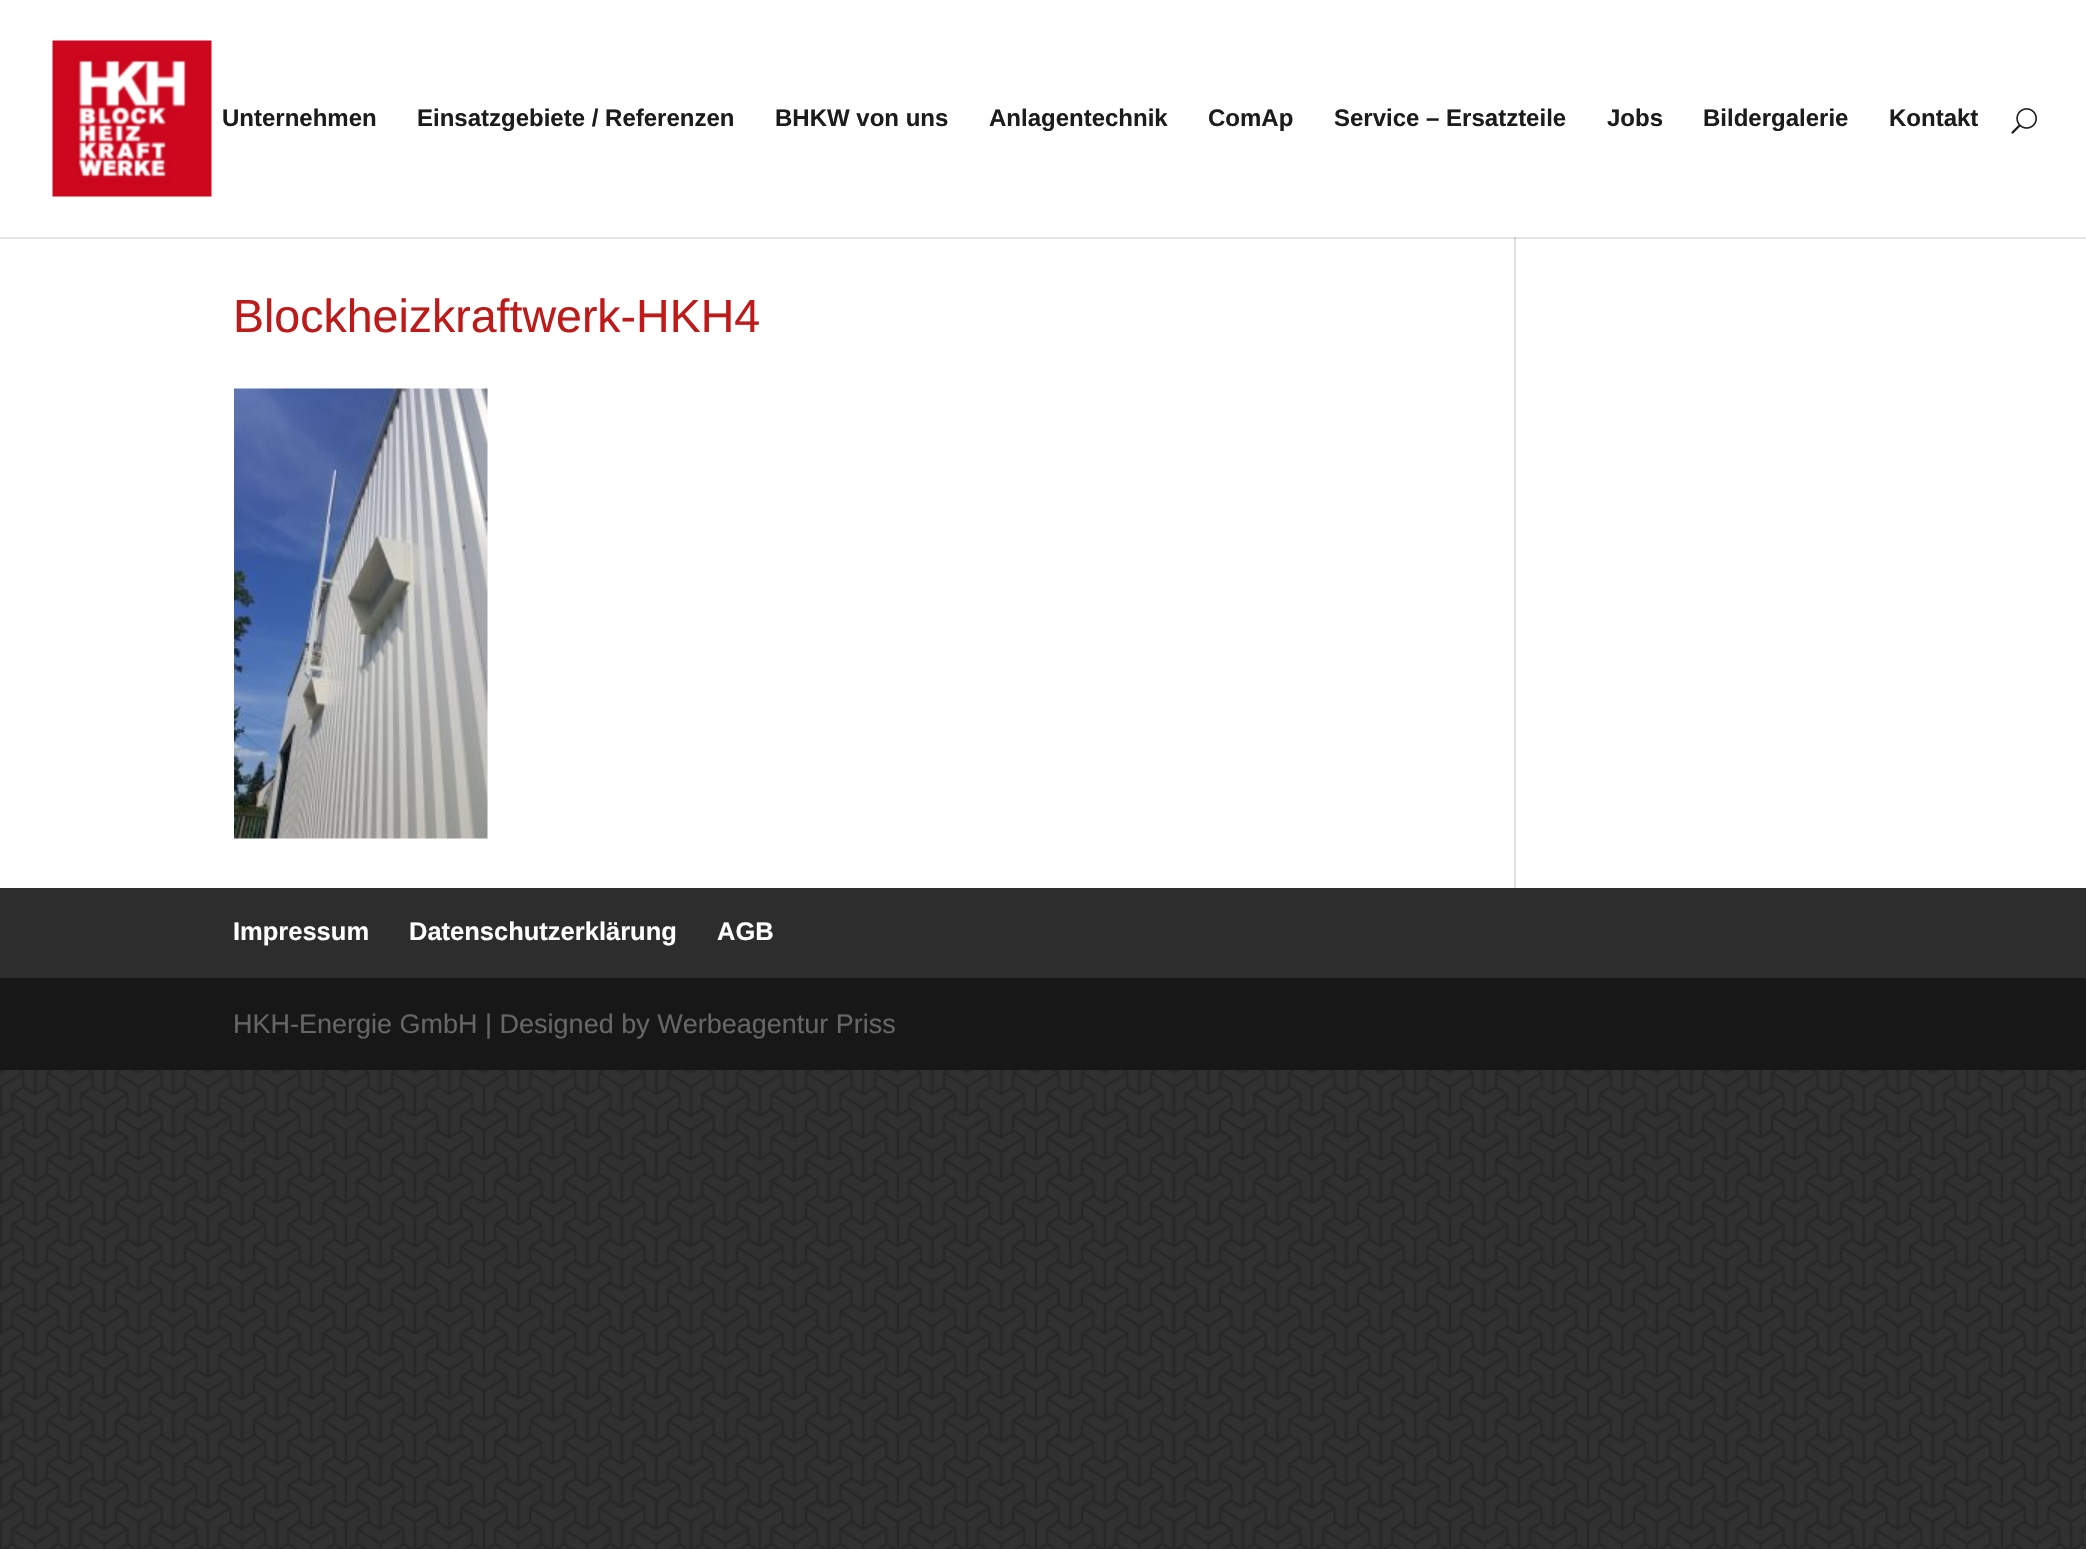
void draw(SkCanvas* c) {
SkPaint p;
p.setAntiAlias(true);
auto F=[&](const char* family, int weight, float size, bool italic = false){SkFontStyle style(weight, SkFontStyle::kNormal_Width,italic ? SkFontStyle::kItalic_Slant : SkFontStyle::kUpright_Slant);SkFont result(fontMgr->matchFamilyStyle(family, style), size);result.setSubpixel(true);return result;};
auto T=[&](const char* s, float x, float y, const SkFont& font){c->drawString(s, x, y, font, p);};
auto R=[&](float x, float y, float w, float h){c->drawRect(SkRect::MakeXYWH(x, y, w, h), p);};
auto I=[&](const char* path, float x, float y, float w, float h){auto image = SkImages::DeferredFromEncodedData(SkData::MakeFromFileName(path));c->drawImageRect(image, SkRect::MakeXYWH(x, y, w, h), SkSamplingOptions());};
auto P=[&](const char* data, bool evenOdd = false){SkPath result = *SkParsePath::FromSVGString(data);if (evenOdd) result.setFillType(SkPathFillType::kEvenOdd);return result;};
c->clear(0xffffffff);
I("1.png",0,1070,2086,479);
p.setColor(0xffe2e2e2);
R(1514,237,2,651);
p.setColor(0x1a000000);
c->drawPath(P("M0 237v2h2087v-237h-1v235z"),p);
I("2.png",52,40,160,157);
auto f1 = F("Liberation Sans",700,24);
p.setColor(0xff1c1c1c);
T("Unternehmen",222,126,f1);
T("Einsatzgebiete / Referenzen",417,126,f1);
T("BHKW von uns",775,126,f1);
T("Anlagentechnik",989,126,f1);
T("ComAp",1208,126,f1);
T("Service – Ersatzteile",1334,126,f1);
T("Jobs",1607,126,f1);
T("Bildergalerie",1703,126,f1);
T("Kontakt",1889,126,f1);
I("3.png",2011,108,26,26);
auto f2 = F("Liberation Sans",400,46.5);
p.setColor(0xffbf1a1a);
T("Blockheizkraftwerk-HKH4",233,332,f2);
I("4.png",234,388,254,451);
p.setColor(0xff2d2d2d);
R(0,888,2086,90);
auto f3 = F("Liberation Sans",700,25.5);
p.setColor(0xffffffff);
T("Impressum",233,940,f3);
T("Datenschutzerklärung",409,940,f3);
T("AGB",717,940,f3);
p.setColor(0xff171717);
R(0,978,2086,92);
auto f4 = F("Liberation Sans",400,27);
p.setColor(0xff666666);
T("HKH-Energie GmbH | Designed by Werbeagentur Priss",233,1033,f4);
}
